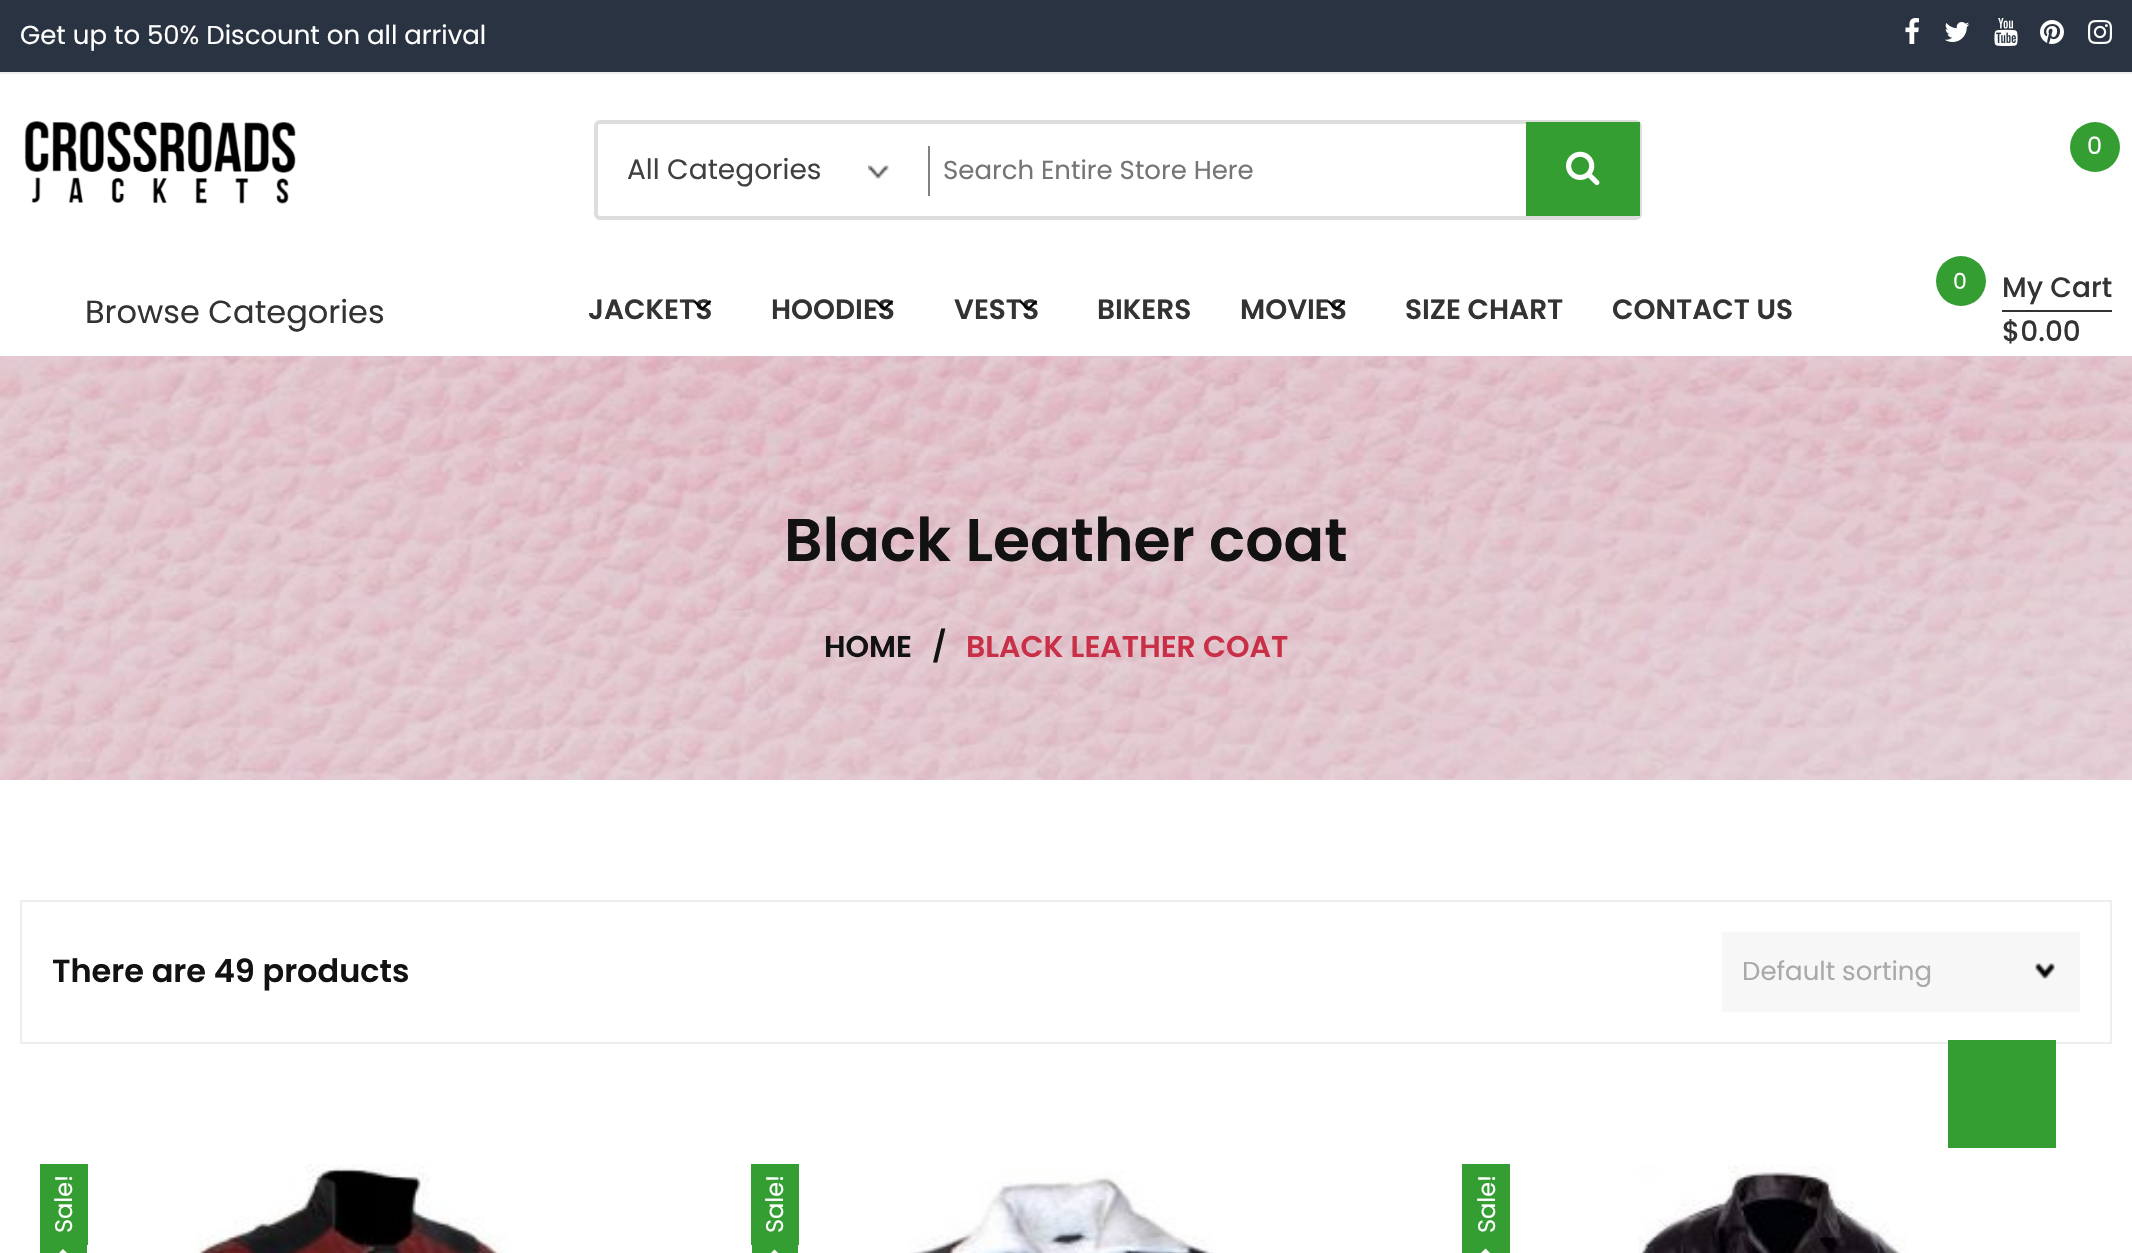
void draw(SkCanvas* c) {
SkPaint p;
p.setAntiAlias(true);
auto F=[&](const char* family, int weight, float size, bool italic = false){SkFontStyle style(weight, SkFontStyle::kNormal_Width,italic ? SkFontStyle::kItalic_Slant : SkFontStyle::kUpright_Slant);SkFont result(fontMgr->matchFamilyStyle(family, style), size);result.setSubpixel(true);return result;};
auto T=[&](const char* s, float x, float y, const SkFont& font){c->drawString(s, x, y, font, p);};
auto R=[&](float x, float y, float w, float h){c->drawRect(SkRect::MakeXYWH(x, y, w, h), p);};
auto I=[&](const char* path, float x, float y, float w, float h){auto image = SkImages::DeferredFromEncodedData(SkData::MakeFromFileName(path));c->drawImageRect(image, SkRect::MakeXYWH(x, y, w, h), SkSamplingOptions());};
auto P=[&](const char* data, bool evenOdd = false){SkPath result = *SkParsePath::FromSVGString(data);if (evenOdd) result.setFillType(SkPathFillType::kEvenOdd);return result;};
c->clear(0xffffffff);
p.setColor(0xff293341);
R(0,0,2132,72);
p.setColor(0xffeeeeee);
R(0,72,2132,2);
auto f1 = F("Poppins",400,26);
p.setColor(0xffffffff);
T("Get up to 50% Discount on all arrival",20,44,f1);
I("1.png",1905,18,14,26);
I("2.png",1944,22,26,20);
I("3.png",1994,18,24,28);
I("4.png",2040,20,24,24);
I("5.png",2088,20,24,24);
I("6.png",24,121,272,83);
p.setColor(0xff359e33);
c->drawCircle(2095,147,25,p);
auto f2 = F("Poppins",400,24);
p.setColor(0xffffffff);
T("0",2087,154,f2);
p.setStroke(true);
p.setStrokeWidth(4);
p.setColor(0xffdddddd);
c->drawRoundRect(SkRect::MakeXYWH(596,122,1044,96),4,4,p);
I("7.png",868,165,21,14);
auto f3 = F("Poppins",400,28);
p.setStroke(false);
p.setColor(0xff404040);
T("All Categories",627,179,f3);
p.setColor(0xff818181);
R(928,146,2,50);
p.setColor(0xff757575);
T("Search Entire Store Here",943,179,f1);
p.setColor(0xff359e33);
R(1526,122,114,94);
I("8.png",1566,151,34,35);
auto f4 = F("Poppins",400,32);
p.setColor(0xff333333);
T("Browse Categories",85,323,f4);
auto f5 = F("Poppins",600,28);
T("JACKETS",588,319,f5);
I("9.png",693,300,19,11);
T("HOODIES",771,319,f5);
I("10.png",875,300,19,11);
T("VESTS",954,319,f5);
I("11.png",1019,300,19,11);
T("BIKERS",1097,319,f5);
T("MOVIES",1240,319,f5);
I("12.png",1327,300,19,11);
T("SIZE CHART",1405,319,f5);
T("CONTACT US",1612,319,f5);
p.setColor(0xff359e33);
c->drawCircle(1961,281,25,p);
auto f6 = F("Poppins",400,22);
p.setColor(0xffffffff);
T("0",1953,289,f6);
p.setColor(0xff333333);
R(2002,310,110,2);
auto f7 = F("Poppins",500,28);
T("My Cart",2002,297,f7);
T("$0.00",2002,341,f7);
I("13.png",0,356,2132,424);
auto f8 = F("Poppins",600,60);
p.setColor(0xff121212);
T("Black Leather coat",784,561,f8);
auto f9 = F("Poppins",600,30);
T("HOME",824,657,f9);
T("/",932,657,f9);
p.setColor(0xffc93048);
T("BLACK LEATHER COAT",966,657,f9);
p.setStroke(true);
p.setStrokeWidth(2);
p.setColor(0xffeeeeee);
c->drawRect(SkRect::MakeXYWH(21,901,2090,142),p);
auto f10 = F("Poppins",600,32);
p.setStroke(false);
p.setColor(0xff121212);
T("There are 49 products",52,982,f10);
p.setColor(0xfff7f7f7);
R(1722,932,358,80);
I("14.png",2035,963,20,16);
p.setColor(0xffa9a9a9);
T("Default sorting",1742,980,f1);
p.setColor(0xff359e33);
R(40,1164,48,81);
p.setColor(0xffffffff);
c->save();
c->rotate(-90,72,1233);
T("Sale!",72,1233,f2);
c->restore();
p.setColor(0xff359e33);
c->drawPath(P("M40 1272v-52l26 26z"),p);
c->drawPath(P("M87 1221v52l-26-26z"),p);
I("15.png",194,1164,314,89);
R(751,1164,48,81);
p.setColor(0xffffffff);
c->save();
c->rotate(-90,783,1233);
T("Sale!",783,1233,f2);
c->restore();
p.setColor(0xff359e33);
c->drawPath(P("M752 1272v-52l26 26z"),p);
c->drawPath(P("M798 1221v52l-26-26z"),p);
I("16.png",909,1170,305,83);
R(1462,1164,48,81);
p.setColor(0xffffffff);
c->save();
c->rotate(-90,1495,1233);
T("Sale!",1495,1233,f2);
c->restore();
p.setColor(0xff359e33);
c->drawPath(P("M1462 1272v-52l26 26z"),p);
c->drawPath(P("M1510 1221v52l-26-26z"),p);
I("17.png",1638,1164,269,89);
R(1948,1040,108,108);
}
